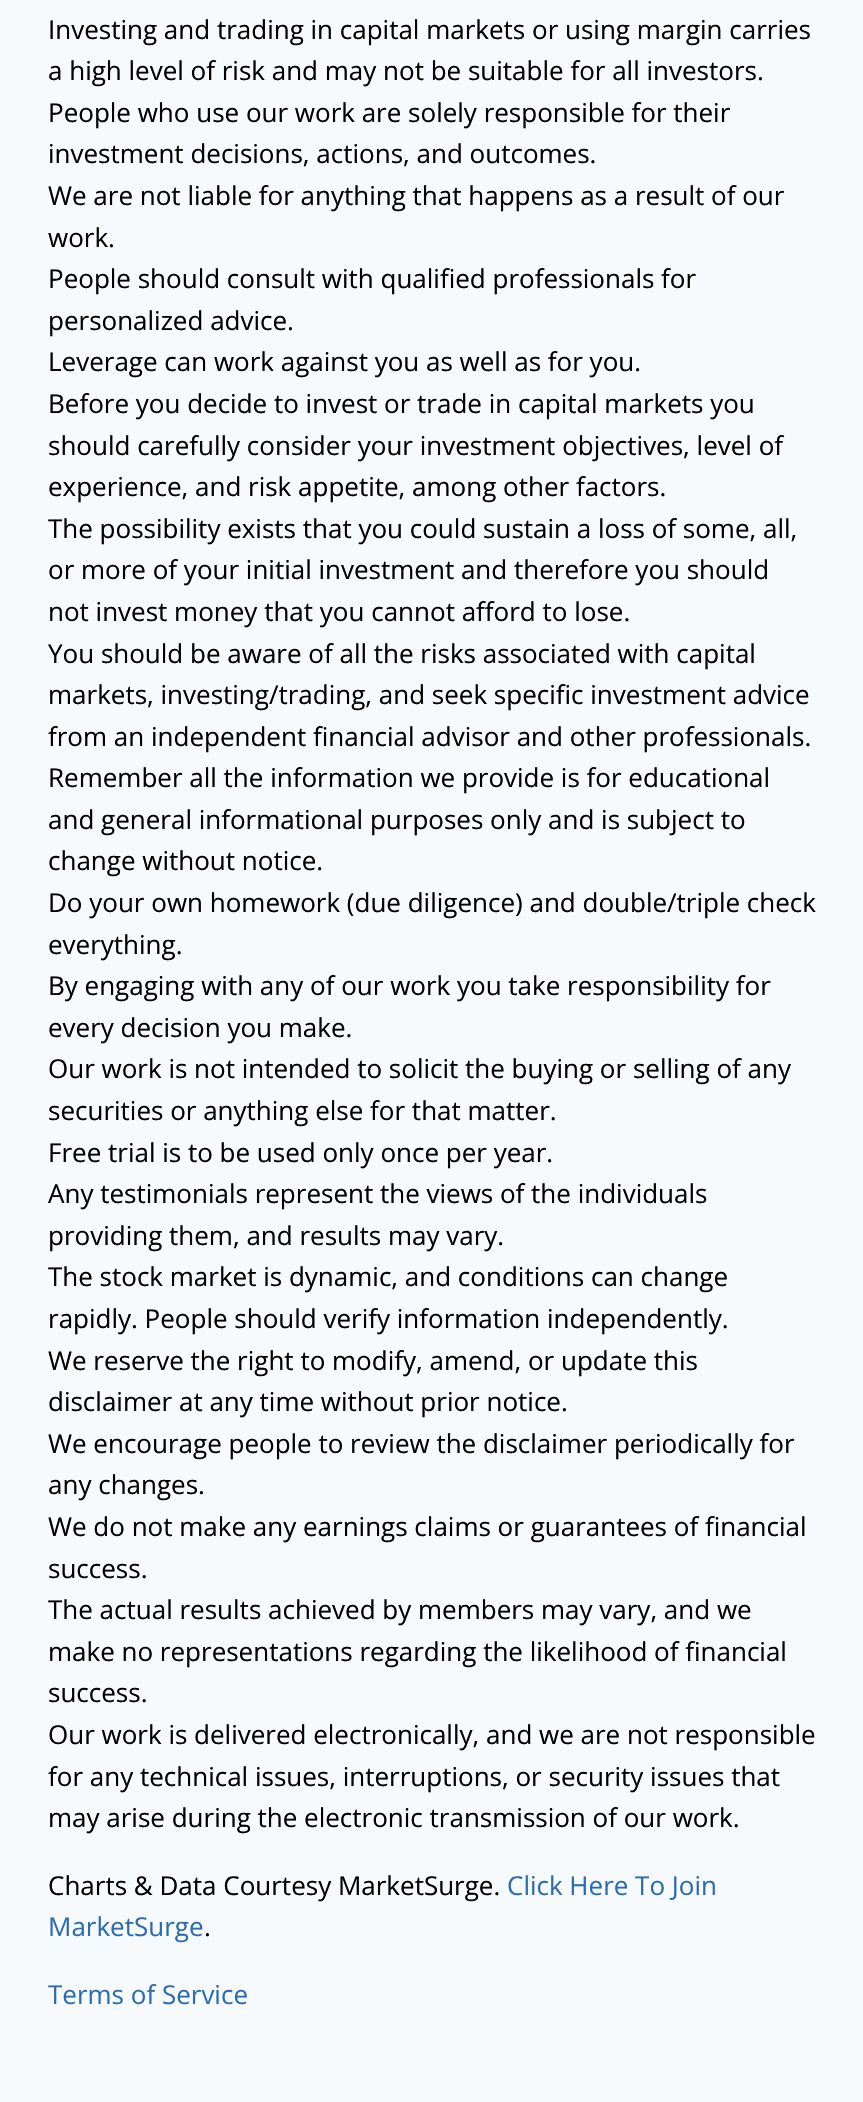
void draw(SkCanvas* c) {
SkPaint p;
p.setAntiAlias(true);
auto F=[&](const char* family, int weight, float size, bool italic = false){SkFontStyle style(weight, SkFontStyle::kNormal_Width,italic ? SkFontStyle::kItalic_Slant : SkFontStyle::kUpright_Slant);SkFont result(fontMgr->matchFamilyStyle(family, style), size);result.setSubpixel(true);return result;};
auto T=[&](const char* s, float x, float y, const SkFont& font){c->drawString(s, x, y, font, p);};
c->clear(0xfff7fafc);
auto f1 = F("Open Sans",400,26);
p.setColor(0xff000000);
T("Investing and trading in capital markets or using margin carries",48,39,f1);
T("a high level of risk and may not be suitable for all investors.",48,80,f1);
T("People who use our work are solely responsible for their",48,122,f1);
T("investment decisions, actions, and outcomes.",48,163,f1);
T("We are not liable for anything that happens as a result of our",48,205,f1);
T("work.",48,247,f1);
T("People should consult with qualified professionals for",48,288,f1);
T("personalized advice.",48,330,f1);
T("Leverage can work against you as well as for you.",48,371,f1);
T("Before you decide to invest or trade in capital markets you",48,413,f1);
T("should carefully consider your investment objectives, level of",48,455,f1);
T("experience, and risk appetite, among other factors.",48,496,f1);
T("The possibility exists that you could sustain a loss of some, all,",48,538,f1);
T("or more of your initial investment and therefore you should",48,579,f1);
T("not invest money that you cannot afford to lose.",48,621,f1);
T("You should be aware of all the risks associated with capital",48,663,f1);
T("markets, investing/trading, and seek specific investment advice",48,704,f1);
T("from an independent financial advisor and other professionals.",48,746,f1);
T("Remember all the information we provide is for educational",48,787,f1);
T("and general informational purposes only and is subject to",48,829,f1);
T("change without notice.",48,870,f1);
T("Do your own homework (due diligence) and double/triple check",48,912,f1);
T("everything.",48,954,f1);
T("By engaging with any of our work you take responsibility for",48,995,f1);
T("every decision you make.",48,1037,f1);
T("Our work is not intended to solicit the buying or selling of any",48,1078,f1);
T("securities or anything else for that matter.",48,1120,f1);
T("Free trial is to be used only once per year.",48,1162,f1);
T("Any testimonials represent the views of the individuals",48,1203,f1);
T("providing them, and results may vary.",48,1245,f1);
T("The stock market is dynamic, and conditions can change",48,1286,f1);
T("rapidly. People should verify information independently.",48,1328,f1);
T("We reserve the right to modify, amend, or update this",48,1370,f1);
T("disclaimer at any time without prior notice.",48,1411,f1);
T("We encourage people to review the disclaimer periodically for",48,1453,f1);
T("any changes.",48,1494,f1);
T("We do not make any earnings claims or guarantees of financial",48,1536,f1);
T("success.",48,1578,f1);
T("The actual results achieved by members may vary, and we",48,1619,f1);
T("make no representations regarding the likelihood of financial",48,1661,f1);
T("success.",48,1702,f1);
T("Our work is delivered electronically, and we are not responsible",48,1744,f1);
T("for any technical issues, interruptions, or security issues that",48,1786,f1);
T("may arise during the electronic transmission of our work.",48,1827,f1);
T("Charts & Data Courtesy MarketSurge.",48,1895,f1);
p.setColor(0xff2b6cb0);
T("Click Here To Join",507,1895,f1);
T("MarketSurge",48,1936,f1);
p.setColor(0xff000000);
T(".",204,1936,f1);
p.setColor(0xff2b6cb0);
T("Terms of Service",48,2004,f1);
}
